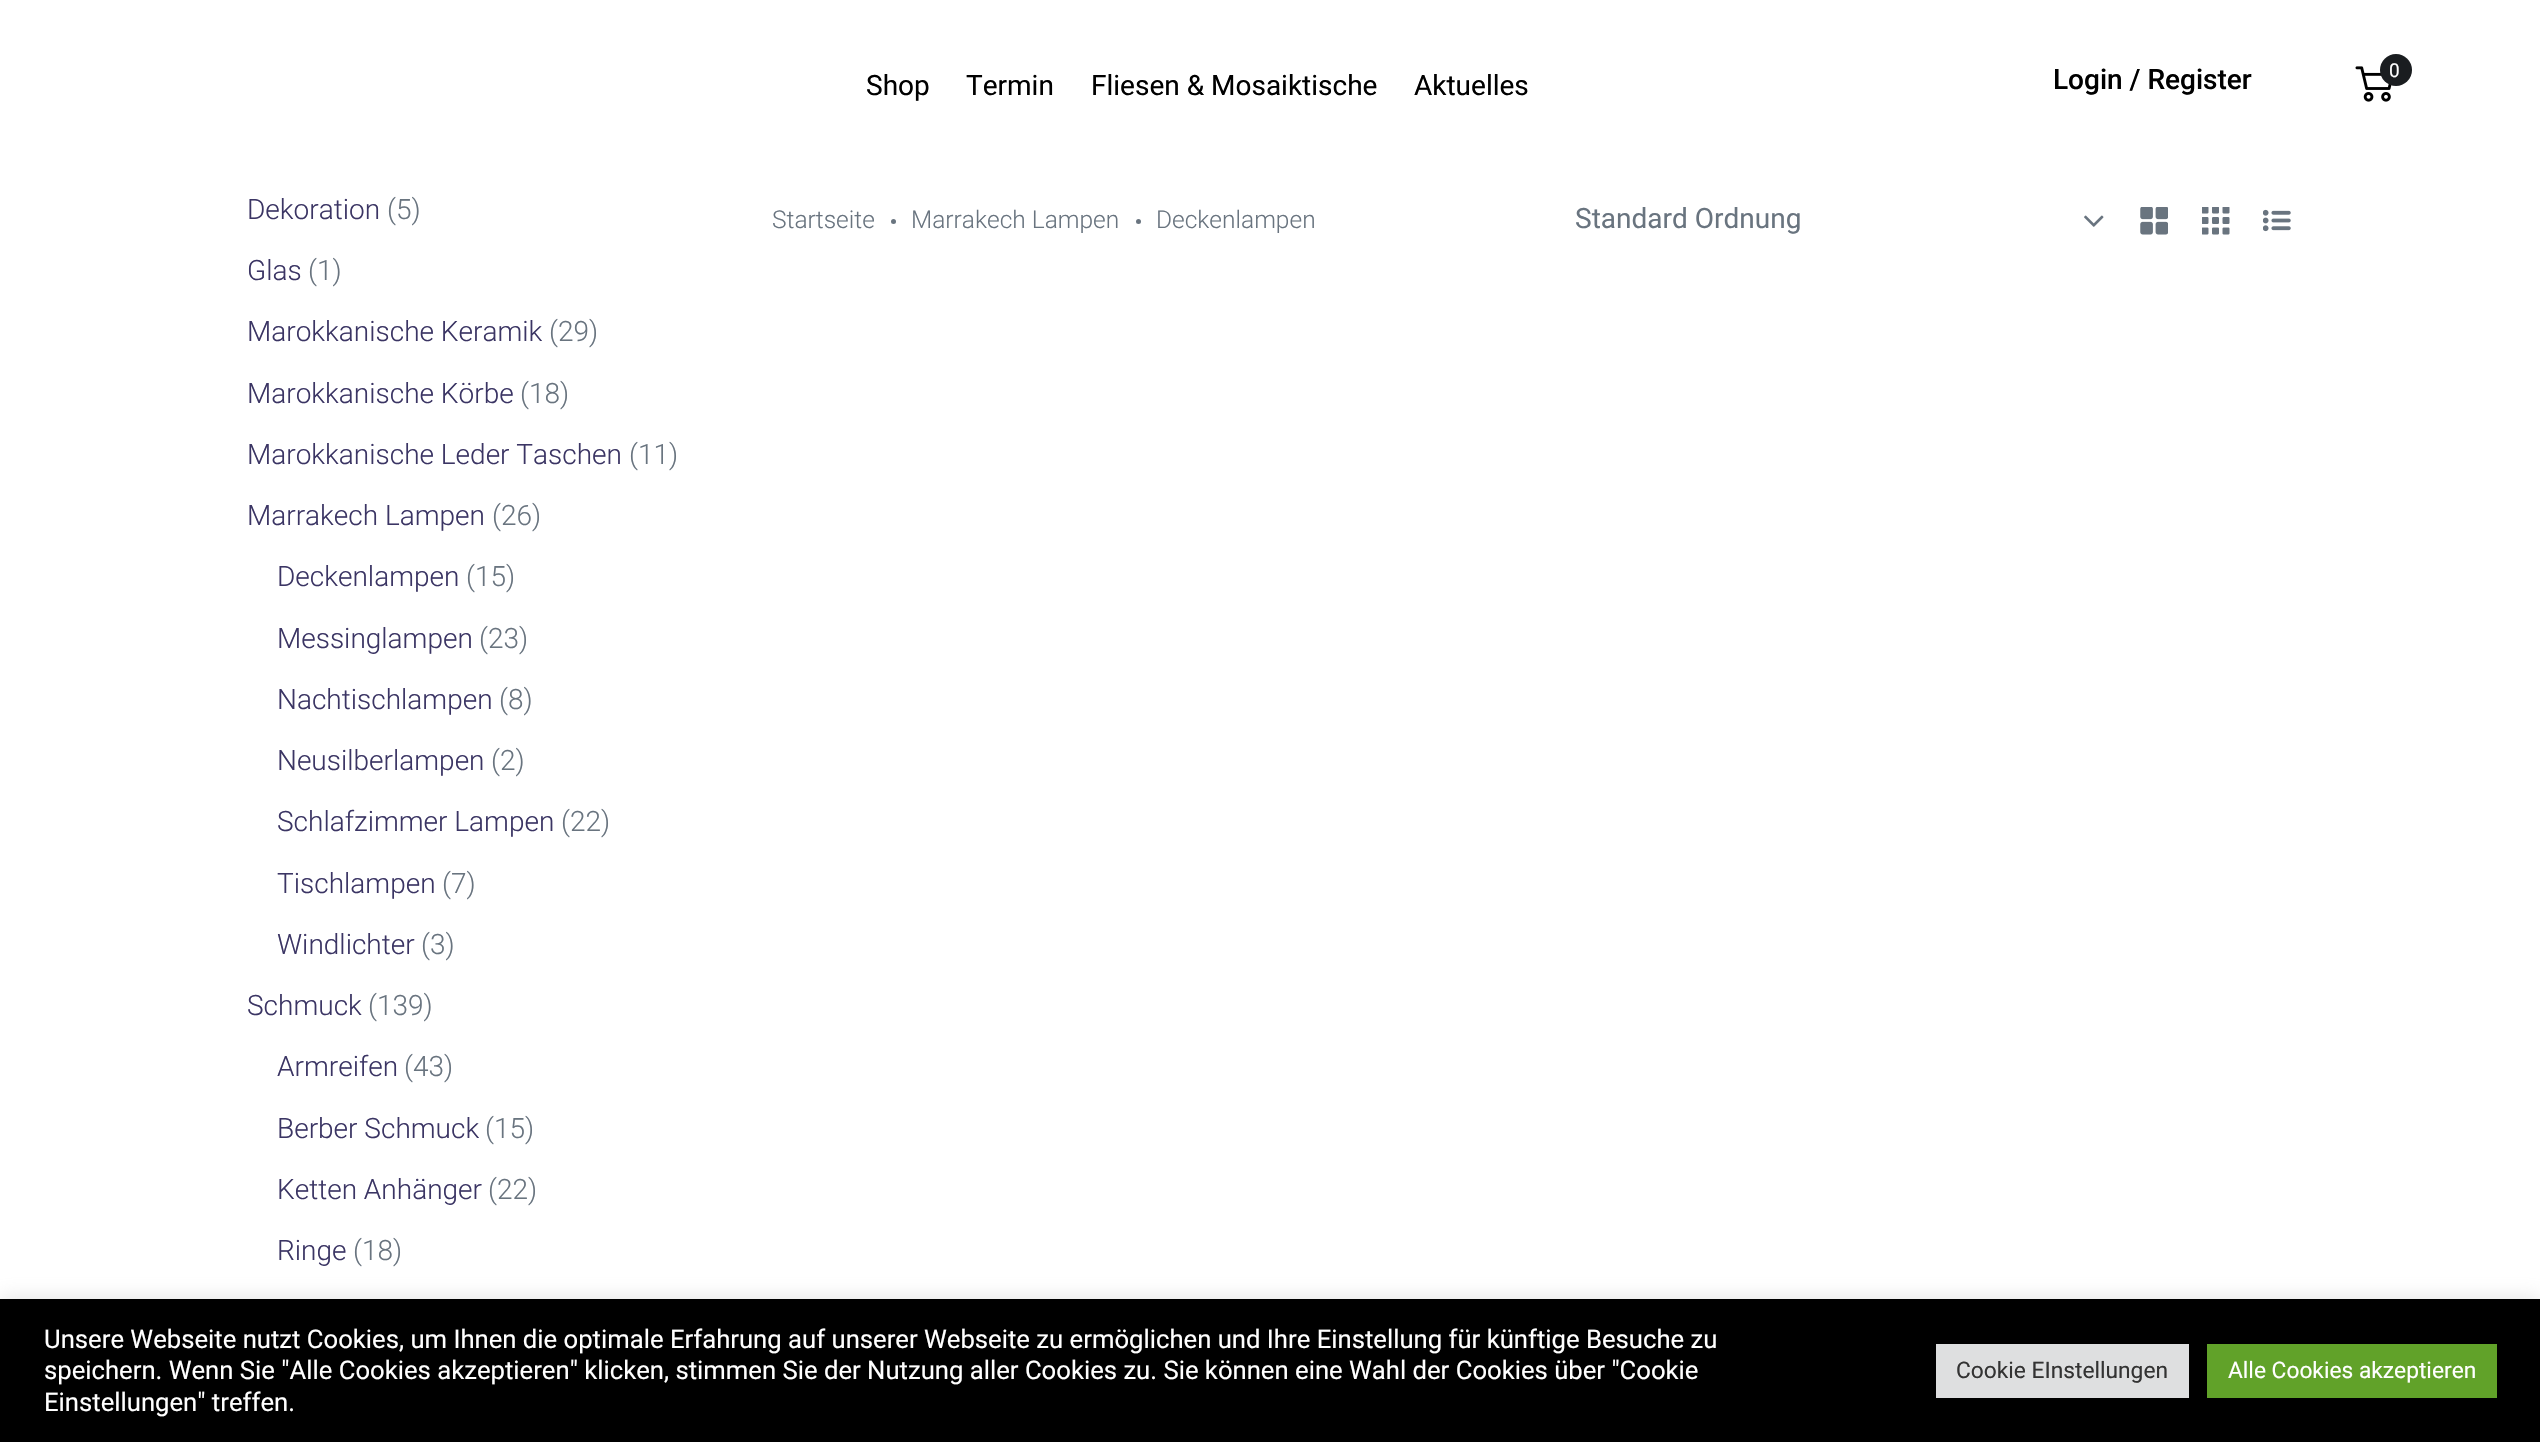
void draw(SkCanvas* c) {
SkPaint p;
p.setAntiAlias(true);
auto F=[&](const char* family, int weight, float size, bool italic = false){SkFontStyle style(weight, SkFontStyle::kNormal_Width,italic ? SkFontStyle::kItalic_Slant : SkFontStyle::kUpright_Slant);SkFont result(fontMgr->matchFamilyStyle(family, style), size);result.setSubpixel(true);return result;};
auto T=[&](const char* s, float x, float y, const SkFont& font){c->drawString(s, x, y, font, p);};
auto R=[&](float x, float y, float w, float h){c->drawRect(SkRect::MakeXYWH(x, y, w, h), p);};
auto I=[&](const char* path, float x, float y, float w, float h){auto image = SkImages::DeferredFromEncodedData(SkData::MakeFromFileName(path));c->drawImageRect(image, SkRect::MakeXYWH(x, y, w, h), SkSamplingOptions());};
c->clear(0xffffffff);
auto f1 = F("Roboto",400,28);
p.setColor(0xff000000);
T("Shop",866,95,f1);
T("Termin",966,95,f1);
T("Fliesen & Mosaiktische",1091,95,f1);
T("Aktuelles",1414,95,f1);
auto f2 = F("Roboto",500,28);
T("Login / Register",2053,89,f2);
I("1.png",2355,66,37,36);
p.setColor(0xff1a1d20);
c->drawCircle(2396,70,16,p);
auto f3 = F("Roboto",400,19);
p.setColor(0xffffffff);
T("0",2389,77,f3);
auto f4 = F("Roboto",300,28);
p.setColor(0xff3b3564);
T("Dekoration",247,219,f4);
p.setColor(0xff69747f);
T("(5)",387,219,f4);
p.setColor(0xff3b3564);
T("Glas",247,280,f4);
p.setColor(0xff69747f);
T("(1)",308,280,f4);
p.setColor(0xff3b3564);
T("Marokkanische Keramik",247,341,f4);
p.setColor(0xff69747f);
T("(29)",549,341,f4);
p.setColor(0xff3b3564);
T("Marokkanische Körbe",247,403,f4);
p.setColor(0xff69747f);
T("(18)",520,403,f4);
p.setColor(0xff3b3564);
T("Marokkanische Leder Taschen",247,464,f4);
p.setColor(0xff69747f);
T("(11)",629,464,f4);
p.setColor(0xff3b3564);
T("Marrakech Lampen",247,525,f4);
p.setColor(0xff69747f);
T("(26)",492,525,f4);
p.setColor(0xff3b3564);
T("Deckenlampen",277,586,f4);
p.setColor(0xff69747f);
T("(15)",466,586,f4);
p.setColor(0xff3b3564);
T("Messinglampen",277,648,f4);
p.setColor(0xff69747f);
T("(23)",479,648,f4);
p.setColor(0xff3b3564);
T("Nachtischlampen",277,709,f4);
p.setColor(0xff69747f);
T("(8)",499,709,f4);
p.setColor(0xff3b3564);
T("Neusilberlampen",277,770,f4);
p.setColor(0xff69747f);
T("(2)",491,770,f4);
p.setColor(0xff3b3564);
T("Schlafzimmer Lampen",277,831,f4);
p.setColor(0xff69747f);
T("(22)",561,831,f4);
p.setColor(0xff3b3564);
T("Tischlampen",277,893,f4);
p.setColor(0xff69747f);
T("(7)",442,893,f4);
p.setColor(0xff3b3564);
T("Windlichter",277,954,f4);
p.setColor(0xff69747f);
T("(3)",421,954,f4);
p.setColor(0xff3b3564);
T("Schmuck",247,1015,f4);
p.setColor(0xff69747f);
T("(139)",368,1015,f4);
p.setColor(0xff3b3564);
T("Armreifen",277,1076,f4);
p.setColor(0xff69747f);
T("(43)",404,1076,f4);
p.setColor(0xff3b3564);
T("Berber Schmuck",277,1138,f4);
p.setColor(0xff69747f);
T("(15)",485,1138,f4);
p.setColor(0xff3b3564);
T("Ketten Anhänger",277,1199,f4);
p.setColor(0xff69747f);
T("(22)",488,1199,f4);
p.setColor(0xff3b3564);
T("Ringe",277,1260,f4);
p.setColor(0xff69747f);
T("(18)",353,1260,f4);
auto f5 = F("Roboto",300,24.5);
T("Startseite",772,228,f5);
c->drawCircle(893.5,221.5,2.5,p);
T("Marrakech Lampen",911,228,f5);
c->drawCircle(1138.5,221.5,2.5,p);
T("Deckenlampen",1156,228,f5);
T("Standard Ordnung",1575,228,f1);
I("2.png",2084,215,20,12);
I("3.png",2140,207,28,28);
I("4.png",2202,207,28,28);
I("5.png",2263,209,28,23);
p.setColor(0x4dacabab);
p.setMaskFilter(SkMaskFilter::MakeBlur(kNormal_SkBlurStyle, 9));
c->drawRect(SkRect::MakeXYWH(0,1297,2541,143),p);
p.setMaskFilter(nullptr);
p.setColor(0xff000000);
R(0,1299,2540,143);
auto f6 = F("Roboto",400,25.67);
p.setColor(0xffffffff);
T("Unsere Webseite nutzt Cookies, um Ihnen die optimale Erfahrung auf unserer Webseite zu ermöglichen und Ihre Einstellung für künftige Besuche zu",44,1348,f6);
T("speichern. Wenn Sie \"Alle Cookies akzeptieren\" klicken, stimmen Sie der Nutzung aller Cookies zu. Sie können eine Wahl der Cookies über \"Cookie",44,1379,f6);
T("Einstellungen\" treffen.",44,1411,f6);
p.setColor(0xffdedfe0);
R(1936,1344,253,54);
auto f7 = F("Roboto",400,22.75);
p.setColor(0xff333333);
T("Cookie EInstellungen",1956,1378,f7);
p.setColor(0xff61a229);
R(2207,1344,290,54);
p.setColor(0xffffffff);
T("Alle Cookies akzeptieren",2228,1378,f7);
}
